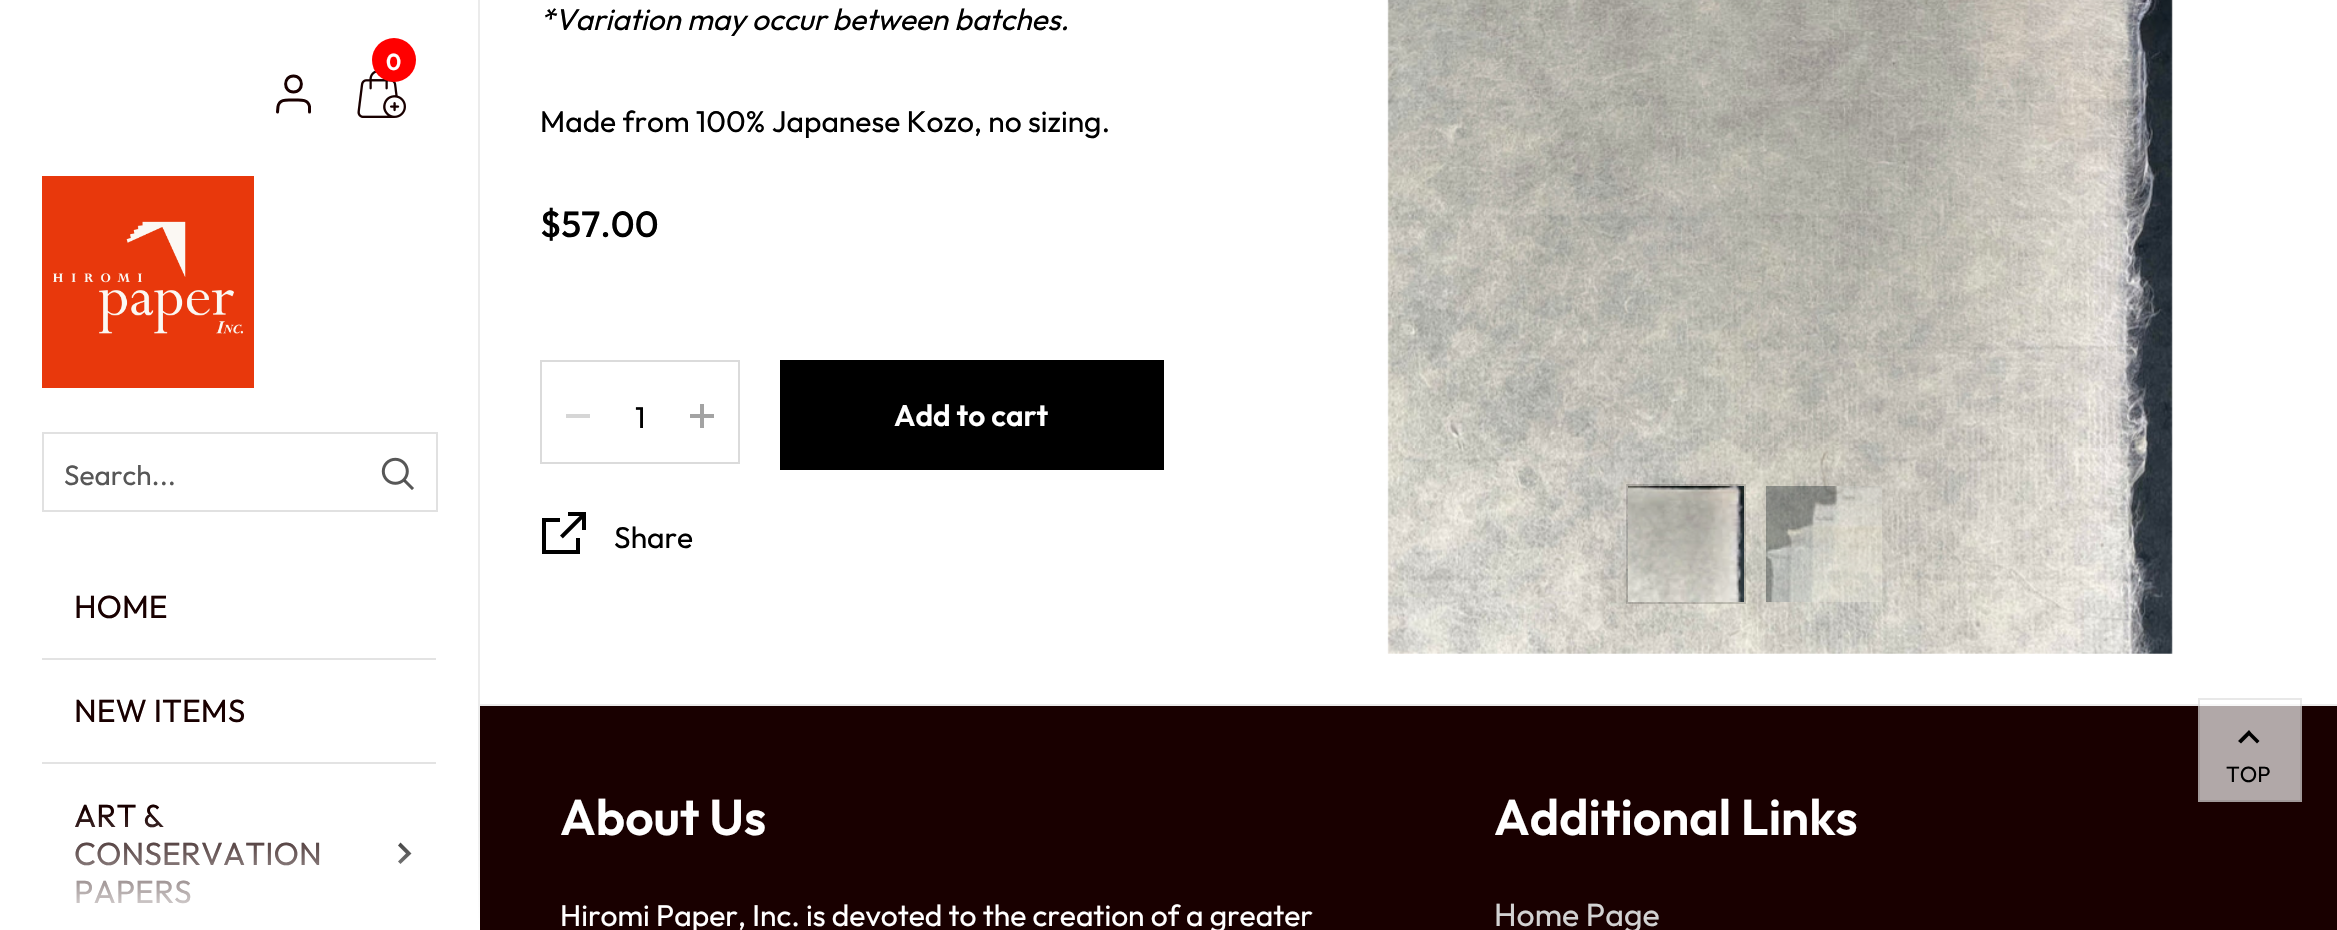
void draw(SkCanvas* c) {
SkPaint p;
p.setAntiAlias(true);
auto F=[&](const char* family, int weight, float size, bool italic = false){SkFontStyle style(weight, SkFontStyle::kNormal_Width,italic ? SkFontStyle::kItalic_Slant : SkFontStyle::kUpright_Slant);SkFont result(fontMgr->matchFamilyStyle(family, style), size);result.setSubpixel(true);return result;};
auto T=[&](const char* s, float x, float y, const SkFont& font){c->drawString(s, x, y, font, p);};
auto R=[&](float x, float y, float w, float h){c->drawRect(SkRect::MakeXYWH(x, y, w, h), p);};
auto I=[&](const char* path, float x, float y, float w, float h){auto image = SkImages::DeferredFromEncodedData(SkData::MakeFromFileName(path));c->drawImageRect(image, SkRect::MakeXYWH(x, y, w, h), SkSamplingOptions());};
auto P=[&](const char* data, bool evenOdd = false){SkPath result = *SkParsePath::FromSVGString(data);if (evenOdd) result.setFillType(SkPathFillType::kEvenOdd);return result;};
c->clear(0xffffffff);
p.setColor(0xffebebeb);
R(478,0,2,930);
I("1.png",357,70,49,48);
p.setColor(0xffff0000);
c->drawCircle(394,60,22,p);
auto f1 = F("Outfit",600,23);
p.setColor(0xffffffff);
T("0",386,70,f1);
p.setStroke(true);
p.setStrokeWidth(3);
p.setStrokeCap(SkPaint::kRound_Cap);
p.setStrokeJoin(SkPaint::kRound_Join);
p.setColor(0xff190000);
c->drawPath(P("M309.5 112v-5.5c-1.5-8-10-6.5-16-6.5c-6 0-14-1.5-15.5 6.5l-.5 5.5m16-20c10.5 0 10.5-16 0-16c-10.5 0-10.5 16 0 16z"),p);
I("2.png",42,176,212,212);
p.setStrokeWidth(2);
p.setStrokeCap(SkPaint::kButt_Cap);
p.setStrokeJoin(SkPaint::kMiter_Join);
p.setColor(0xffe1e1e1);
c->drawRect(SkRect::MakeXYWH(43,433,394,78),p);
auto f2 = F("Outfit",400,28);
p.setStroke(false);
p.setColor(0xff575757);
T("Search...",64,485,f2);
I("3.png",381,457,33,33);
p.setColor(0xffe3e3e3);
R(42,658,394,2);
auto f3 = F("Outfit",400,32);
p.setColor(0xff190000);
T("HOME",74,618,f3);
p.setColor(0xffe3e3e3);
R(42,762,394,2);
p.setColor(0xff190000);
T("NEW ITEMS",74,722,f3);
T("ART &",74,827,f3);
T("CONSERVATION",74,865,f3);
T("PAPERS",74,903,f3);
p.setColor(0xff000000);
c->drawPath(P("M408.5 850.5l-8-8l-2.5 3l8 8l-8 8l2.5 2.5l11-10.5z",true),p);
{
const SkColor colors[] = {0xffffffff,0x00ffffff};
const float stops[] = {0,1};
const SkPoint ends[] = {{240,930}, {240,810}};
p.setShader(SkGradientShader::MakeLinear(ends, colors, stops, 2, SkTileMode::kClamp));
p.setAlpha(255);
}
R(75,813,405,117);
p.setShader(nullptr);
p.setColor(0xffebebeb);
R(480,704,1857,2);
p.setColor(0xfff8f8f8);
R(2198,704,104,2);
auto f4 = F("Outfit",400,30,true);
p.setColor(0xff000000);
T("*Variation may occur between batches.",540,30,f4);
auto f5 = F("Outfit",400,30);
T("Made from 100% Japanese Kozo, no sizing.",540,132,f5);
auto f6 = F("Outfit",500,36.5);
T("$57.00",540,237,f6);
p.setStroke(true);
p.setColor(0xffdbdbdb);
c->drawRect(SkRect::MakeXYWH(541,361,198,102),p);
p.setStroke(false);
p.setColor(0xffd6d6d6);
R(566,414,24,4);
p.setColor(0xff000000);
T("1",635,428,f5);
I("4.png",690,404,24,24);
R(780,360,384,110);
auto f7 = F("Outfit",600,30);
p.setColor(0xffffffff);
T("Add to cart",894,426,f7);
I("5.png",542,512,44,42);
p.setColor(0xff000000);
T("Share",614,548,f5);
I("6.png",1387,0,786,654);
p.setStroke(true);
p.setColor(0x29000000);
c->drawRect(SkRect::MakeXYWH(1627,485,118,118),p);
I("7.png",1628,486,116,116);
I("8.png",1766,486,116,116);
p.setStroke(false);
p.setColor(0xff190000);
R(480,706,1857,224);
p.setColor(0xffb1a8a8);
R(2198,706,104,96);
auto f8 = F("Outfit",600,50);
p.setColor(0xffffffff);
T("About Us",560,835,f8);
T("Hiromi Paper, Inc. is devoted to the creation of a greater",560,926,f5);
T("Additional Links",1494,835,f8);
p.setColor(0xffd2d2d2);
T("Home Page",1494,926,f3);
p.setStroke(true);
p.setColor(0x17000000);
c->drawRect(SkRect::MakeXYWH(2199,699,102,102),p);
p.setStroke(false);
p.setColor(0xff000000);
c->drawPath(P("M2251.5 733l8 8l-2.5 2.5l-8-8l-8 8l-3-2.5l11-11z",true),p);
auto f9 = F("Outfit",400,22);
T("TOP",2226,782,f9);
}
